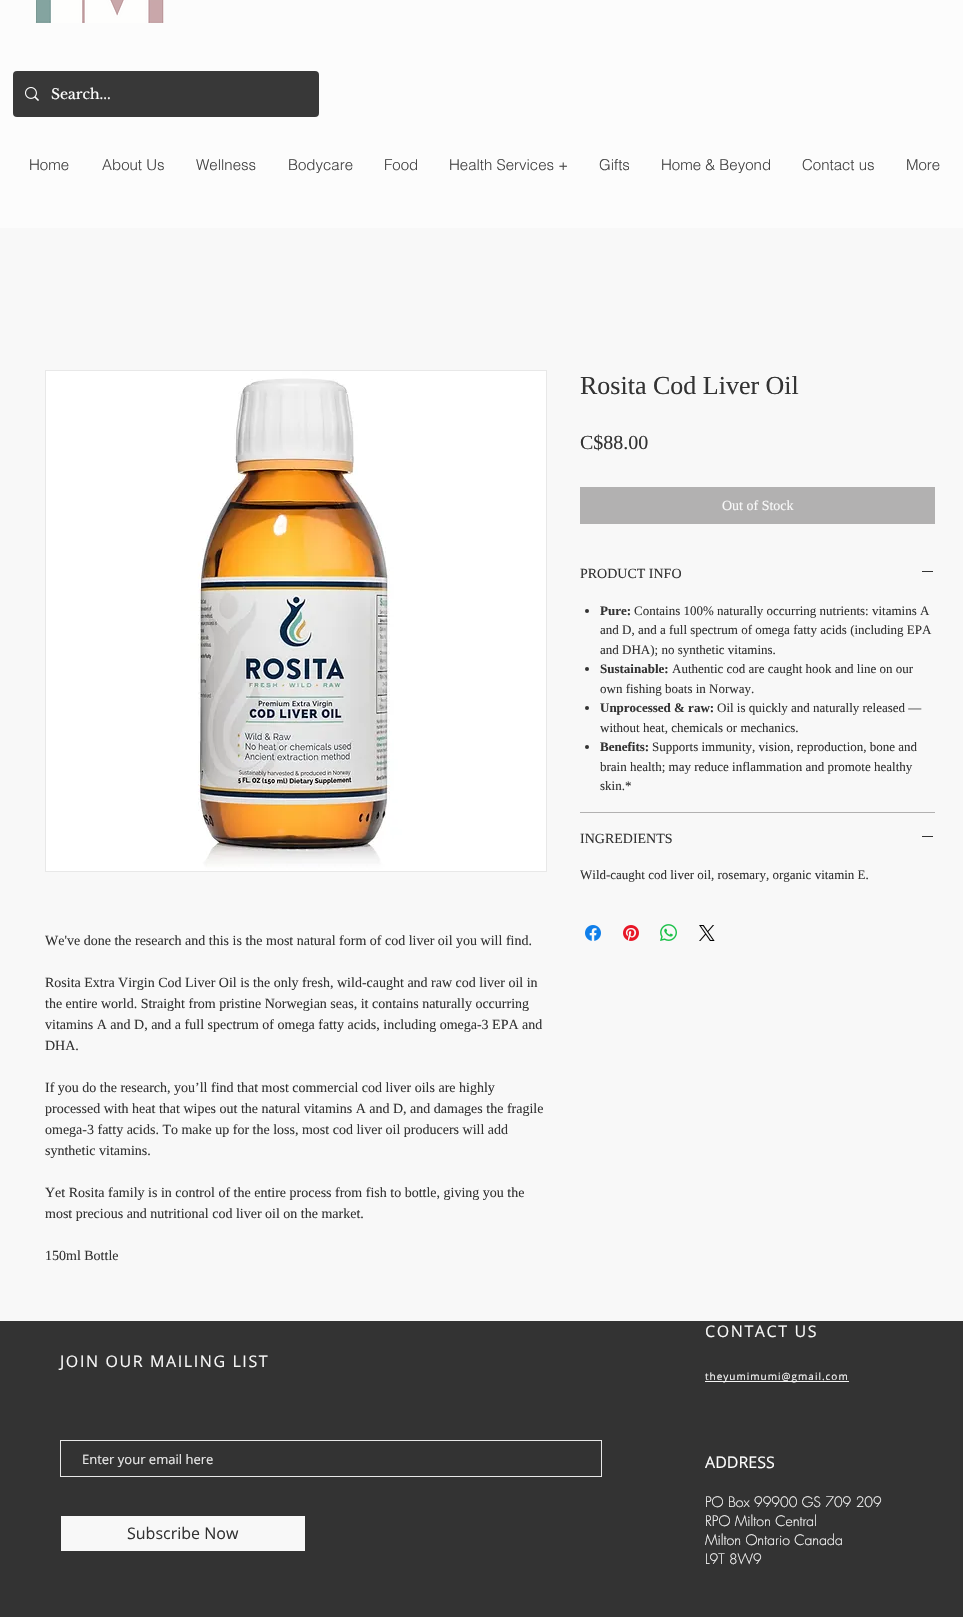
void draw(SkCanvas* c) {
SkPaint p;
p.setAntiAlias(true);
auto F=[&](const char* family, int weight, float size, bool italic = false){SkFontStyle style(weight, SkFontStyle::kNormal_Width,italic ? SkFontStyle::kItalic_Slant : SkFontStyle::kUpright_Slant);SkFont result(fontMgr->matchFamilyStyle(family, style), size);result.setSubpixel(true);return result;};
auto T=[&](const char* s, float x, float y, const SkFont& font){c->drawString(s, x, y, font, p);};
auto L=[&](const char* s, float x, float y, const SkFont& font, const SkPaint& ink, float letter, float word){std::vector<SkGlyphID> glyphs(font.countText(s, strlen(s), SkTextEncoding::kUTF8));std::vector<float> xs(glyphs.size());font.textToGlyphs(s, strlen(s), SkTextEncoding::kUTF8, glyphs);font.getXPos(glyphs, xs, x);float extra = 0;for (size_t i = 0; i < glyphs.size(); i++) {xs[i] += extra;extra += letter + word * (glyphs[i] == font.unicharToGlyph(' '));}c->drawTextBlob(SkTextBlob::MakeFromPosHGlyphs(glyphs, xs, y, font), 0, 0, ink);};
auto R=[&](float x, float y, float w, float h){c->drawRect(SkRect::MakeXYWH(x, y, w, h), p);};
auto Q=[&](float x, float y, float w, float h, float radius){c->drawRoundRect(SkRect::MakeXYWH(x, y, w, h), radius, radius, p);};
auto I=[&](const char* path, float x, float y, float w, float h){auto image = SkImages::DeferredFromEncodedData(SkData::MakeFromFileName(path));c->drawImageRect(image, SkRect::MakeXYWH(x, y, w, h), SkSamplingOptions());};
c->clear(0xfff8f8f8);
p.setColor(0xfffcfcfc);
R(0,0,963,228);
I("1.png",35,0,129,23);
p.setColor(0xff383838);
Q(13,71,306,46,4);
I("2.png",25,87,14,14);
auto f1 = F("Libre Baskerville",400,14);
p.setColor(0xffffffff);
T("Search...",51,99,f1);
auto f2 = F("helvetica",300,15);
p.setColor(0xff444444);
T("Home",29,170,f2);
T("About Us",102,170,f2);
T("Wellness",196,170,f2);
T("Bodycare",288,170,f2);
T("Food",384,170,f2);
T("Health Services +",449,170,f2);
T("Gifts",599,170,f2);
T("Home & Beyond",661,170,f2);
T("Contact us",802,170,f2);
T("More",906,170,f2);
auto f3 = F("Liberation Serif",400,26);
p.setColor(0xff333333);
T("Rosita Cod Liver Oil",580,394,f3);
auto f4 = F("Liberation Serif",400,20);
T("C$88.00",580,449,f4);
p.setColor(0xffb2b1b1);
R(580,487,355,37);
auto f5 = F("Liberation Serif",400,14);
p.setColor(0xfff8f8f8);
T("Out of Stock",722,510,f5);
p.setColor(0xffb2b1b1);
R(580,812,355,1);
p.setColor(0xff333333);
T("PRODUCT INFO",580,578,f5);
R(922,571,11,1);
c->drawCircle(587,611,2,p);
auto f6 = F("Liberation Serif",700,13);
T("Pure:",600,615,f6);
auto f7 = F("Liberation Serif",400,13);
T("Contains 100% naturally occurring nutrients: vitamins A",634,615,f7);
T("and D, and a full spectrum of omega fatty acids (including EPA",600,634,f7);
T("and DHA); no synthetic vitamins.",600,654,f7);
c->drawCircle(587,669,2,p);
T("Sustainable:",600,673,f6);
T("Authentic cod are caught hook and line on our",672,673,f7);
T("own fishing boats in Norway.",600,693,f7);
c->drawCircle(587,708,2,p);
T("Unprocessed & raw:",600,712,f6);
T("Oil is quickly and naturally released —",717,712,f7);
T("without heat, chemicals or mechanics.",600,732,f7);
c->drawCircle(587,747,2,p);
T("Benefits:",600,751,f6);
T("Supports immunity, vision, reproduction, bone and",652,751,f7);
T("brain health; may reduce inflammation and promote healthy",600,771,f7);
T("skin.*",600,790,f7);
T("INGREDIENTS",580,843,f5);
R(922,836,11,1);
T("Wild-caught cod liver oil, rosemary, organic vitamin E.",580,879,f7);
I("3.png",585,925,16,16);
I("4.png",623,925,16,16);
I("5.png",660,924,17,17);
I("6.png",699,925,16,16);
p.setStroke(true);
p.setStrokeWidth(1);
p.setColor(0xffe8e8e8);
c->drawRect(SkRect::MakeXYWH(45.5,370.5,501,501),p);
I("7.png",46,371,500,500);
p.setStroke(false);
p.setColor(0xff333333);
T("We've done the research and this is the most natural form of cod liver oil you will find.",45,945,f5);
T("Rosita Extra Virgin Cod Liver Oil is the only fresh, wild-caught and raw cod liver oil in",45,987,f5);
T("the entire world. Straight from pristine Norwegian seas, it contains naturally occurring",45,1008,f5);
T("vitamins A and D, and a full spectrum of omega fatty acids, including omega-3 EPA and",45,1029,f5);
T("DHA.",45,1050,f5);
T("If you do the research, you’ll find that most commercial cod liver oils are highly",45,1092,f5);
T("processed with heat that wipes out the natural vitamins A and D, and damages the fragile",45,1113,f5);
T("omega-3 fatty acids. To make up for the loss, most cod liver oil producers will add",45,1134,f5);
T("synthetic vitamins.",45,1155,f5);
T("Yet Rosita family is in control of the entire process from fish to bottle, giving you the",45,1197,f5);
T("most precious and nutritional cod liver oil on the market.",45,1218,f5);
T("150ml Bottle",45,1260,f5);
R(0,1321,963,296);
auto f8 = F("Open Sans",400,16);
p.setColor(0xfff8f8f8);
L("JOIN OUR MAILING LIST",60,1367,f8,p,1.6,0);
L("CONTACT US",705,1337,f8,p,1.6,0);
p.setColor(0xfff5f5f5);
R(705,1381,144,1);
auto f9 = F("Open Sans",400,10);
p.setColor(0xfff8f8f8);
L("theyumimumi@gmail.com",705,1380,f9,p,1,0);
p.setStroke(true);
p.setColor(0xffe8e8e8);
c->drawRect(SkRect::MakeXYWH(60.5,1440.5,541,36),p);
auto f10 = F("Open Sans",400,13);
p.setStroke(false);
T("Enter your email here",82,1464,f10);
p.setColor(0xffffffff);
T("ADDRESS",705,1468,f8);
auto f11 = F("futura",300,14);
T("PO Box 99900 GS 709 209",705,1507,f11);
T("RPO Milton Central",705,1526,f11);
T("Milton Ontario Canada",705,1545,f11);
T("L9T 8W9",705,1564,f11);
p.setColor(0xfff8f8f8);
R(61,1516,244,35);
p.setColor(0xff333333);
T("Subscribe Now",127,1539,f8);
}
